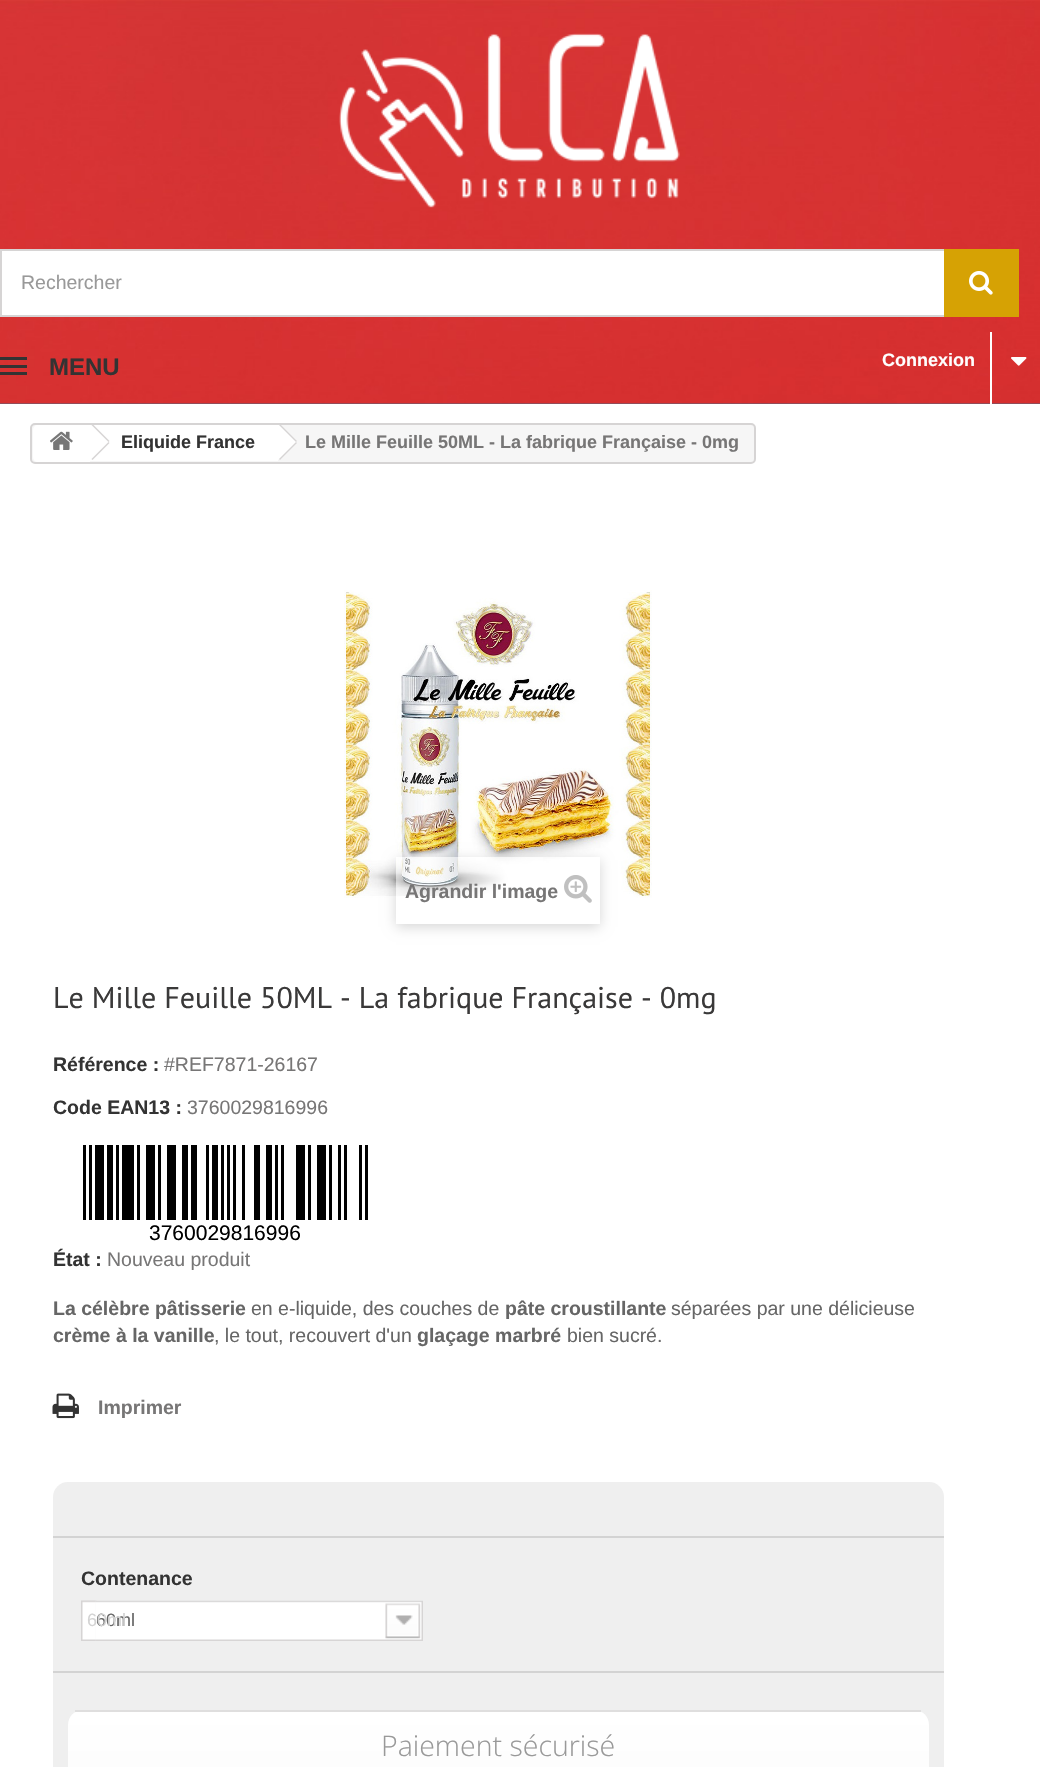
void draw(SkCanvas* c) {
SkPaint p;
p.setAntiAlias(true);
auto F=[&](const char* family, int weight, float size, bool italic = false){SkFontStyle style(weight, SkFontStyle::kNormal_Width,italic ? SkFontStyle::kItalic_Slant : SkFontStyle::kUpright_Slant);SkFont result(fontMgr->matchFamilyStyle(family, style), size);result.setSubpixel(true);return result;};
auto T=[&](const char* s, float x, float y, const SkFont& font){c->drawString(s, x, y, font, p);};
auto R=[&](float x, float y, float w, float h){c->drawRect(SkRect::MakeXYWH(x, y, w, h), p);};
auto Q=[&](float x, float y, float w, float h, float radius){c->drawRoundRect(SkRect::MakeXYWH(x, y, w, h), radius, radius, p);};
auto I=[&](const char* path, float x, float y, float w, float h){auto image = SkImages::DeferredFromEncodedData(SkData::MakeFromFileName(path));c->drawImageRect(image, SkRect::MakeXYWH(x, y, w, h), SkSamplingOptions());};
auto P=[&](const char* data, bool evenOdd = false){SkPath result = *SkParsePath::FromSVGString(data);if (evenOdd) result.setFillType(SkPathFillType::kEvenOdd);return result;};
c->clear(0xff4b6a85);
I("1.png",0,0,1040,404);
I("2.png",339,33,341,175);
p.setColor(0xffffffff);
R(2,251,942,64);
p.setStroke(true);
p.setStrokeWidth(2);
p.setColor(0xffd6d4d4);
c->drawRect(SkRect::MakeXYWH(1,250,1017,66),p);
auto f1 = F("Liberation Sans",400,19.5);
p.setStroke(false);
p.setColor(0xff999999);
T("Rechercher",21,289,f1);
p.setColor(0xffd6a204);
R(944,249,75,68);
I("3.png",969,271,24,24);
p.setColor(0xff333333);
R(0,357,27,3);
R(0,365,27,3);
R(0,372,27,3);
auto f2 = F("Liberation Sans",700,24);
T("MENU",49,375,f2);
p.setColor(0xffffffff);
R(990,332,2,72);
auto f3 = F("Liberation Sans",700,18);
T("Connexion",882,366,f3);
I("4.png",1011,357,16,9);
R(0,404,1040,1363);
p.setColor(0xfff6f6f6);
c->drawRoundRect(SkRect::MakeXYWH(31,424,724,39),4,4,p);
p.setStroke(true);
p.setColor(0xffd6d4d4);
c->drawRoundRect(SkRect::MakeXYWH(31,424,724,39),4,4,p);
p.setStroke(false);
p.setColor(0xffffffff);
c->drawPath(P("M38 425h52v37h-52c-3 0-5-2-5-5v-27c0-3 2-5 5-5z"),p);
I("5.png",50,431,23,19);
R(90,425,188,36);
p.setColor(0xffd6d4d4);
c->drawPath(P("M93.5 425l16 16l-1 1l-17-17zm15 17l1 1l-17 17l-1-1z"),p);
p.setColor(0xff333333);
T("Eliquide France",121,448,f3);
p.setColor(0xffffffff);
c->drawPath(P("M281 425h-4l-15 15c-1 1-1 3 0 4l15 15c1 1 3 1 4 0l15-15c1-1 1-3 0-4z"),p);
p.setColor(0xffd6d4d4);
c->drawPath(P("M281 425l16 16l-1 1l-17-17zm15 17l1 1l-17 17l-1-1z"),p);
p.setColor(0xff777676);
T("Le Mille Feuille 50ML - La fabrique Française - 0mg",305,448,f3);
I("6.png",344,590,308,308);
c->save();
c->clipPath(P("M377 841h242v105h-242zm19 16h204v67h-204z",true),true);
p.setColor(0x29000000);
p.setMaskFilter(SkMaskFilter::MakeBlur(kNormal_SkBlurStyle, 6));
c->drawRect(SkRect::MakeXYWH(396,860,204,67),p);
p.setMaskFilter(nullptr);
c->restore();
p.setColor(0x80ffffff);
R(396,857,147,39);
auto f4 = F("Liberation Sans",700,19.5);
p.setColor(0xff777676);
T("Agrandir l'image",405,898,f4);
I("7.png",564,875,28,28);
auto f5 = F("PT Sans",400,30);
p.setColor(0xff3a3939);
T("Le Mille Feuille 50ML - La fabrique Française - 0mg",53,1008,f5);
p.setColor(0xff333333);
T("Référence :",53,1071,f4);
p.setColor(0xff777676);
T("#REF7871-26167",164,1071,f1);
p.setColor(0xff333333);
T("Code EAN13 :",53,1114,f4);
p.setColor(0xff777676);
T("3760029816996",187,1114,f1);
p.setColor(0xff000000);
R(83,1145,3,75);
R(89,1145,3,75);
R(95,1145,9,75);
R(107,1145,6,75);
R(116,1145,3,75);
R(122,1145,12,75);
R(137,1145,3,75);
R(146,1145,9,75);
R(158,1145,3,75);
R(167,1145,9,75);
R(182,1145,6,75);
R(191,1145,6,75);
R(206,1145,3,75);
R(212,1145,6,75);
R(221,1145,3,75);
R(227,1145,3,75);
R(233,1145,3,75);
R(242,1145,3,75);
R(254,1145,6,75);
R(266,1145,6,75);
R(275,1145,3,75);
R(281,1145,3,75);
R(296,1145,9,75);
R(308,1145,3,75);
R(317,1145,9,75);
R(329,1145,3,75);
R(338,1145,3,75);
R(344,1145,3,75);
R(359,1145,3,75);
R(365,1145,3,75);
auto f6 = F("Liberation Sans",400,21);
T("3760029816996",149,1240,f6);
p.setColor(0xff333333);
T("État :",53,1266,f4);
p.setColor(0xff777676);
T("Nouveau produit",107,1266,f1);
p.setColor(0xff666666);
T("La célèbre pâtisserie",53,1315,f4);
T("en e-liquide, des couches de",251,1315,f1);
T("pâte croustillante",505,1315,f4);
T("séparées par une délicieuse",671,1315,f1);
T("crème à la vanille",53,1342,f4);
T(", le tout, recouvert d'un",214,1342,f1);
T("glaçage marbré",417,1342,f4);
T("bien sucré.",567,1342,f1);
I("8.png",52,1393,27,26);
p.setColor(0xff777676);
T("Imprimer",98,1414,f4);
p.setColor(0xffefefef);
Q(53,1482,891,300,15);
p.setColor(0xffd3d3d3);
R(53,1536,891,2);
p.setColor(0xff333333);
T("Contenance",81,1585,f4);
I("9.png",81,1600,16,41);
I("10.png",96,1600,327,41);
auto f7 = F("Liberation Sans",400,18);
p.setColor(0xff666666);
T("60ml",96,1626,f7);
p.setColor(0xffd3d3d3);
T("60ml",87,1626,f7);
R(53,1671,891,2);
c->save();
c->clipPath(P("M83 1710h831c8.5 0 15 6.5 15 15v77c0 8.5-6.5 15-15 15h-831c-8.5 0-15-6.5-15-15v-77c0-8.5 6.5-15 15-15z"),true);
{
const SkColor colors[] = {0xffffffff,0xfffbfbfb};
const float stops[] = {0,1};
const SkPoint ends[] = {{498,1712}, {498,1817}};
p.setShader(SkGradientShader::MakeLinear(ends, colors, stops, 2, SkTileMode::kClamp));
p.setAlpha(255);
}
c->drawPath(P("M68 1712h861v55c0 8.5-6.5 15-15 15h-831c-8.5 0-15-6.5-15-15z"),p);
c->restore();
p.setShader(nullptr);
p.setColor(0xffdfdede);
R(75,1710,846,2);
auto f8 = F("Open Sans",300,28.5);
p.setColor(0xff999999);
T("Paiement sécurisé",381,1756,f8);
}
